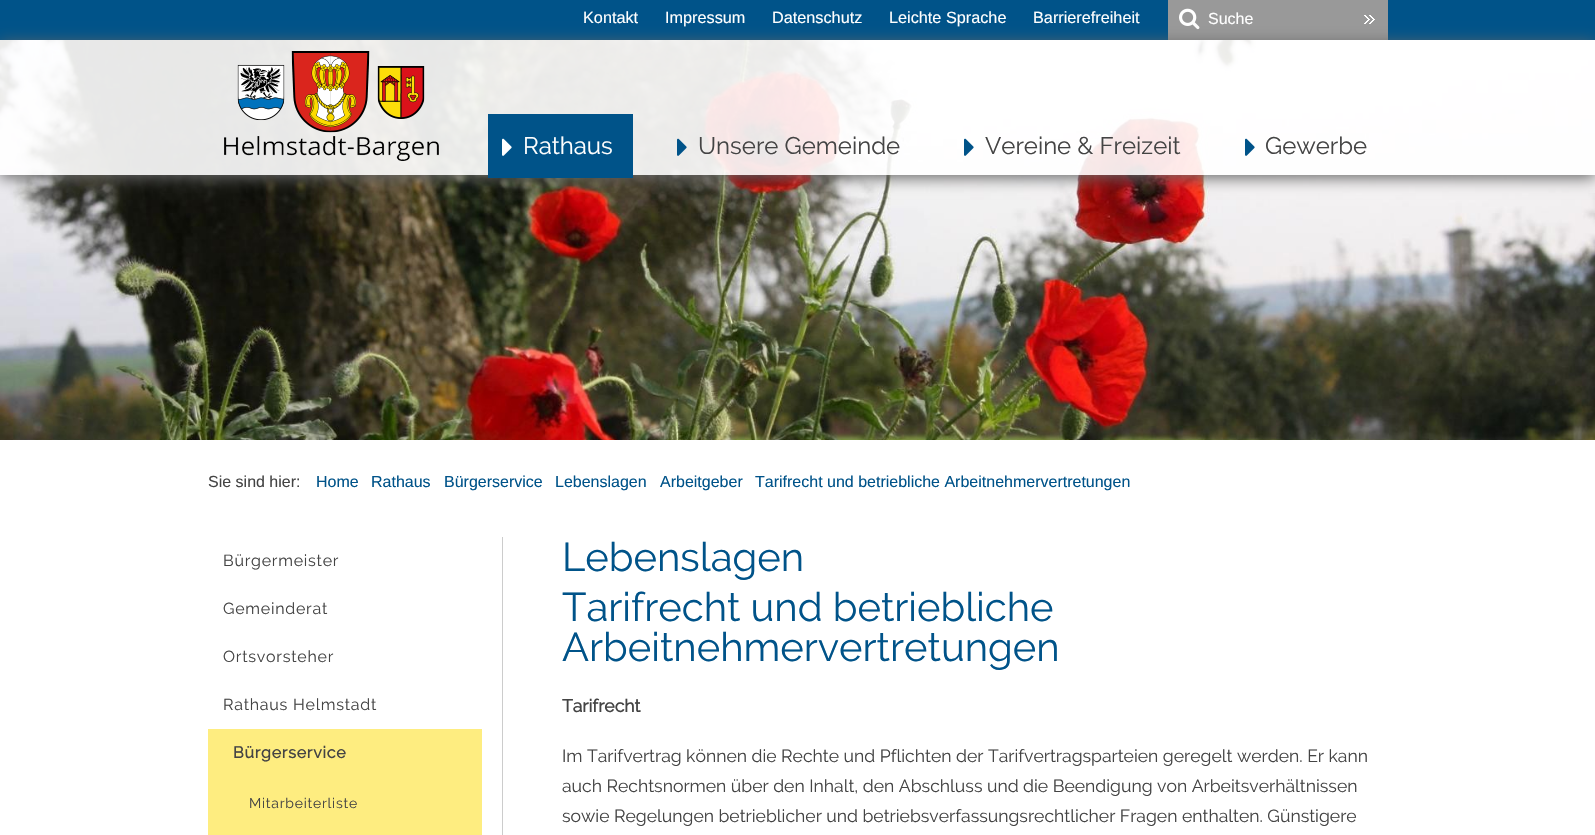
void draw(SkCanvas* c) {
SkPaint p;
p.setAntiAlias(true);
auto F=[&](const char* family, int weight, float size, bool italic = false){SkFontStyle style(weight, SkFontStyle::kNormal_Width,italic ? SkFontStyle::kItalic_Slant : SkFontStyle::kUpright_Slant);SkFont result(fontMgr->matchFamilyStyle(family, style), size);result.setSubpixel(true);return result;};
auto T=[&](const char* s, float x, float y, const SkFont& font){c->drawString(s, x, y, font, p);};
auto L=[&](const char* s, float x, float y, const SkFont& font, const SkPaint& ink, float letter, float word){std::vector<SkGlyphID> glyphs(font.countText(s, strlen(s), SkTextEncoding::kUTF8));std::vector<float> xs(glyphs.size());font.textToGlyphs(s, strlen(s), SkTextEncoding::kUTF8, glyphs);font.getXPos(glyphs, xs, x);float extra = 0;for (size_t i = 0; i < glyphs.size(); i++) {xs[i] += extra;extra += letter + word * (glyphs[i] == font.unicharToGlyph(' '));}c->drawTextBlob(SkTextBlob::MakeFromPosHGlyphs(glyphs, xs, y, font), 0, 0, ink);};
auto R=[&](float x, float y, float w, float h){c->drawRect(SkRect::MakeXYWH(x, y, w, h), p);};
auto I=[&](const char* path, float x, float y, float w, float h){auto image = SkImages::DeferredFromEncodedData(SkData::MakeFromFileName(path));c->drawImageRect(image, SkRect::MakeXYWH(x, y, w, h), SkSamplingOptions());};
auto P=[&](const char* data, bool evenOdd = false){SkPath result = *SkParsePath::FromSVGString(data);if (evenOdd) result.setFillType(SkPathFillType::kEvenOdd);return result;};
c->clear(0xffffffff);
p.setColor(0xff005389);
R(0,0,1595,40);
auto f1 = F("Liberation Sans",400,16.25);
p.setColor(0xffffffff);
T("Kontakt",583,23,f1);
T("Impressum",665,23,f1);
T("Datenschutz",772,23,f1);
T("Leichte Sprache",889,23,f1);
T("Barrierefreiheit",1033,23,f1);
p.setColor(0xff999999);
R(1168,0,220,40);
I("1.png",1179,8,21,22);
auto f2 = F("Liberation Sans",400,16);
p.setColor(0xffffffff);
T("Suche",1208,24,f2);
I("2.png",1364,15,11,9);
I("3.png",0,40,1595,400);
c->save();
c->clipPath(P("M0 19h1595v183h-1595zm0 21h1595v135h-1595z",true),true);
p.setColor(0xff666666);
p.setMaskFilter(SkMaskFilter::MakeBlur(kNormal_SkBlurStyle, 7.5));
c->drawRect(SkRect::MakeXYWH(0,43,1595,135),p);
p.setMaskFilter(nullptr);
c->restore();
p.setColor(0xe6ffffff);
R(0,40,1595,135);
I("4.png",224,51,215,110);
p.setColor(0xff005389);
R(488,114,145,64);
I("5.png",502,138,10,18);
auto f3 = F("Raleway",400,24);
p.setColor(0xffffffff);
T("Rathaus",523,154,f3);
I("6.png",677,138,10,18);
p.setColor(0xff444444);
T("Unsere Gemeinde",698,154,f3);
I("7.png",964,138,10,18);
T("Vereine & Freizeit",985,154,f3);
I("8.png",1245,138,10,18);
T("Gewerbe",1265,154,f3);
T("Sie sind hier:",208,487,f2);
p.setColor(0xff005389);
T("Home",316,487,f2);
T("Rathaus",371,487,f2);
T("Bürgerservice",444,487,f2);
T("Lebenslagen",555,487,f2);
T("Arbeitgeber",660,487,f2);
T("Tarifrecht und betriebliche Arbeitnehmervertretungen",755,487,f2);
p.setColor(0xffcccccc);
R(502,537,1,298);
auto f4 = F("Raleway",400,16);
p.setColor(0xff444444);
L("Bürgermeister",223,566,f4,p,.75,0);
L("Gemeinderat",223,614,f4,p,.75,0);
L("Ortsvorsteher",223,662,f4,p,.75,0);
L("Rathaus Helmstadt",223,710,f4,p,.75,0);
p.setColor(0xfffeed80);
R(208,729,274,106);
auto f5 = F("Raleway",700,16);
p.setColor(0xff444444);
L("Bürgerservice",233,758,f5,p,.75,0);
auto f6 = F("Raleway",400,14);
L("Mitarbeiterliste",249,808,f6,p,.75,0);
auto f7 = F("Raleway",400,40);
p.setColor(0xff005389);
T("Lebenslagen",562,571,f7);
T("Tarifrecht und betriebliche",562,621,f7);
T("Arbeitnehmervertretungen",562,661,f7);
auto f8 = F("Raleway",700,17.6);
p.setColor(0xff444444);
T("Tarifrecht",562,712,f8);
auto f9 = F("Raleway",400,17.6);
T("Im Tarifvertrag können die Rechte und Pflichten der Tarifvertragsparteien geregelt werden. Er kann",562,762,f9);
T("auch Rechtsnormen über den Inhalt, den Abschluss und die Beendigung von Arbeitsverhältnissen",562,792,f9);
T("sowie Regelungen betrieblicher und betriebsverfassungsrechtlicher Fragen enthalten. Günstigere",562,822,f9);
}
